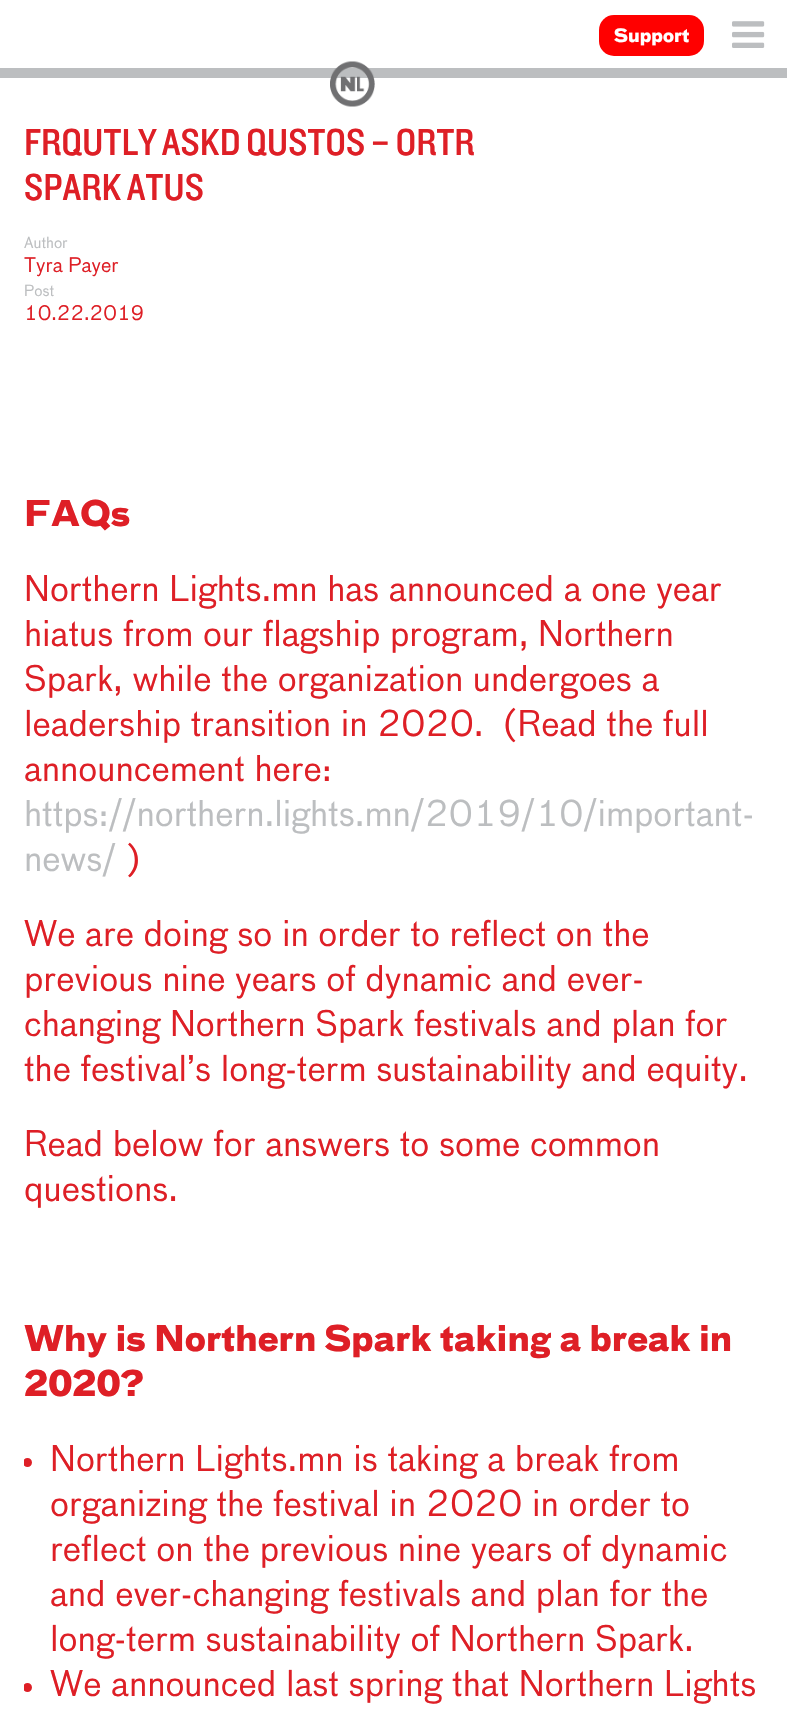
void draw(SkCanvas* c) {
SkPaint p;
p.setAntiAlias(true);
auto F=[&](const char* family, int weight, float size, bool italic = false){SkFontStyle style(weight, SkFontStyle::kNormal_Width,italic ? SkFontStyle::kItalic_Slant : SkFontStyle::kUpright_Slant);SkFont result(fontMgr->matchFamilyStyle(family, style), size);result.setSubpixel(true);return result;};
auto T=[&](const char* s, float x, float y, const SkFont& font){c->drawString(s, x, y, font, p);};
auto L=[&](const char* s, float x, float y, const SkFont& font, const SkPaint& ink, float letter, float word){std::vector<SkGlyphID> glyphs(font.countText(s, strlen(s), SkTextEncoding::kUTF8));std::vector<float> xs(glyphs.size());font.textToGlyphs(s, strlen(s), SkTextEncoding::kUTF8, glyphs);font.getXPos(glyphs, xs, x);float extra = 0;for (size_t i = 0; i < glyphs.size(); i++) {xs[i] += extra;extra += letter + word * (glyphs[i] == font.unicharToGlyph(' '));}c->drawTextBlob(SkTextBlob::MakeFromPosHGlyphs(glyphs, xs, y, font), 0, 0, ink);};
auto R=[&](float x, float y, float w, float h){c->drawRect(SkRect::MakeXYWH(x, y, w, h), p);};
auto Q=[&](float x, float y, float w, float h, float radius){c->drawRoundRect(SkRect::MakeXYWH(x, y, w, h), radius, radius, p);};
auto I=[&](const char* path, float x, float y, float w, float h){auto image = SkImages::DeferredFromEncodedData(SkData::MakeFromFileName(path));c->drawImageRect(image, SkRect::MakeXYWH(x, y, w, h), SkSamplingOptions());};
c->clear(0xffffffff);
p.setColor(0xffbcbec0);
R(0,68,787,10);
p.setColor(0xffff0000);
Q(599,15,105,41,15);
auto f1 = F("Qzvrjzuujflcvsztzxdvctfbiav",700,18);
p.setColor(0xffffffff);
T("Support",614,42,f1);
I("1.png",732,21,33,27);
I("2.png",330,61,45,46);
auto f2 = F("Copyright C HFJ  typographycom",300,39);
p.setColor(0xffde1f26);
L("FREQUENTLY ASKED QUESTIONS – NORTHERN",24,155,f2,p,0,-2);
L("SPARK HIATUS",24,200,f2,p,0,-2);
auto f3 = F("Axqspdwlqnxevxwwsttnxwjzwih",400,15);
p.setColor(0xffbcbec0);
T("Author",24,248,f3);
auto f4 = F("Axqspdwlqnxevxwwsttnxwjzwih",400,19.5);
p.setColor(0xffde1f26);
T("Tyra Payer",24,272,f4);
p.setColor(0xffbcbec0);
T("Post",24,296,f3);
p.setColor(0xffde1f26);
T("10.22.2019",24,320,f4);
auto f5 = F("Qzvrjzuujflcvsztzxdvctfbiav",700,34.5);
T("FAQs",24,526,f5);
auto f6 = F("Axqspdwlqnxevxwwsttnxwjzwih",400,34.5);
T("Northern Lights.mn has announced a one year",24,601,f6);
T("hiatus from our flagship program, Northern",24,646,f6);
T("Spark, while the organization undergoes a",24,691,f6);
T("leadership transition in 2020.  (Read the full",24,736,f6);
T("announcement here:",24,781,f6);
p.setColor(0xffbcbec0);
T("https://northern.lights.mn/2019/10/important-",24,826,f6);
T("news/",24,871,f6);
p.setColor(0xffde1f26);
T(")",126,871,f6);
T("We are doing so in order to reflect on the",24,946,f6);
T("previous nine years of dynamic and ever-",24,991,f6);
T("changing Northern Spark festivals and plan for",24,1036,f6);
T("the festival’s long-term sustainability and equity.",24,1081,f6);
T("Read below for answers to some common",24,1156,f6);
T("questions.",24,1201,f6);
T("Why is Northern Spark taking a break in",24,1351,f5);
T("2020?",24,1396,f5);
c->save();
c->clipRect(SkRect::MakeXYWH(24,114,740,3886));
c->drawCircle(27.5,1462.5,4.5,p);
c->restore();
T("Northern Lights.mn is taking a break from",50,1471,f6);
T("organizing the festival in 2020 in order to",50,1516,f6);
T("reflect on the previous nine years of dynamic",50,1561,f6);
T("and ever-changing festivals and plan for the",50,1606,f6);
T("long-term sustainability of Northern Spark.",50,1651,f6);
c->save();
c->clipRect(SkRect::MakeXYWH(24,114,740,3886));
c->drawCircle(27.5,1687.5,4.5,p);
c->restore();
T("We announced last spring that Northern Lights",50,1696,f6);
}
